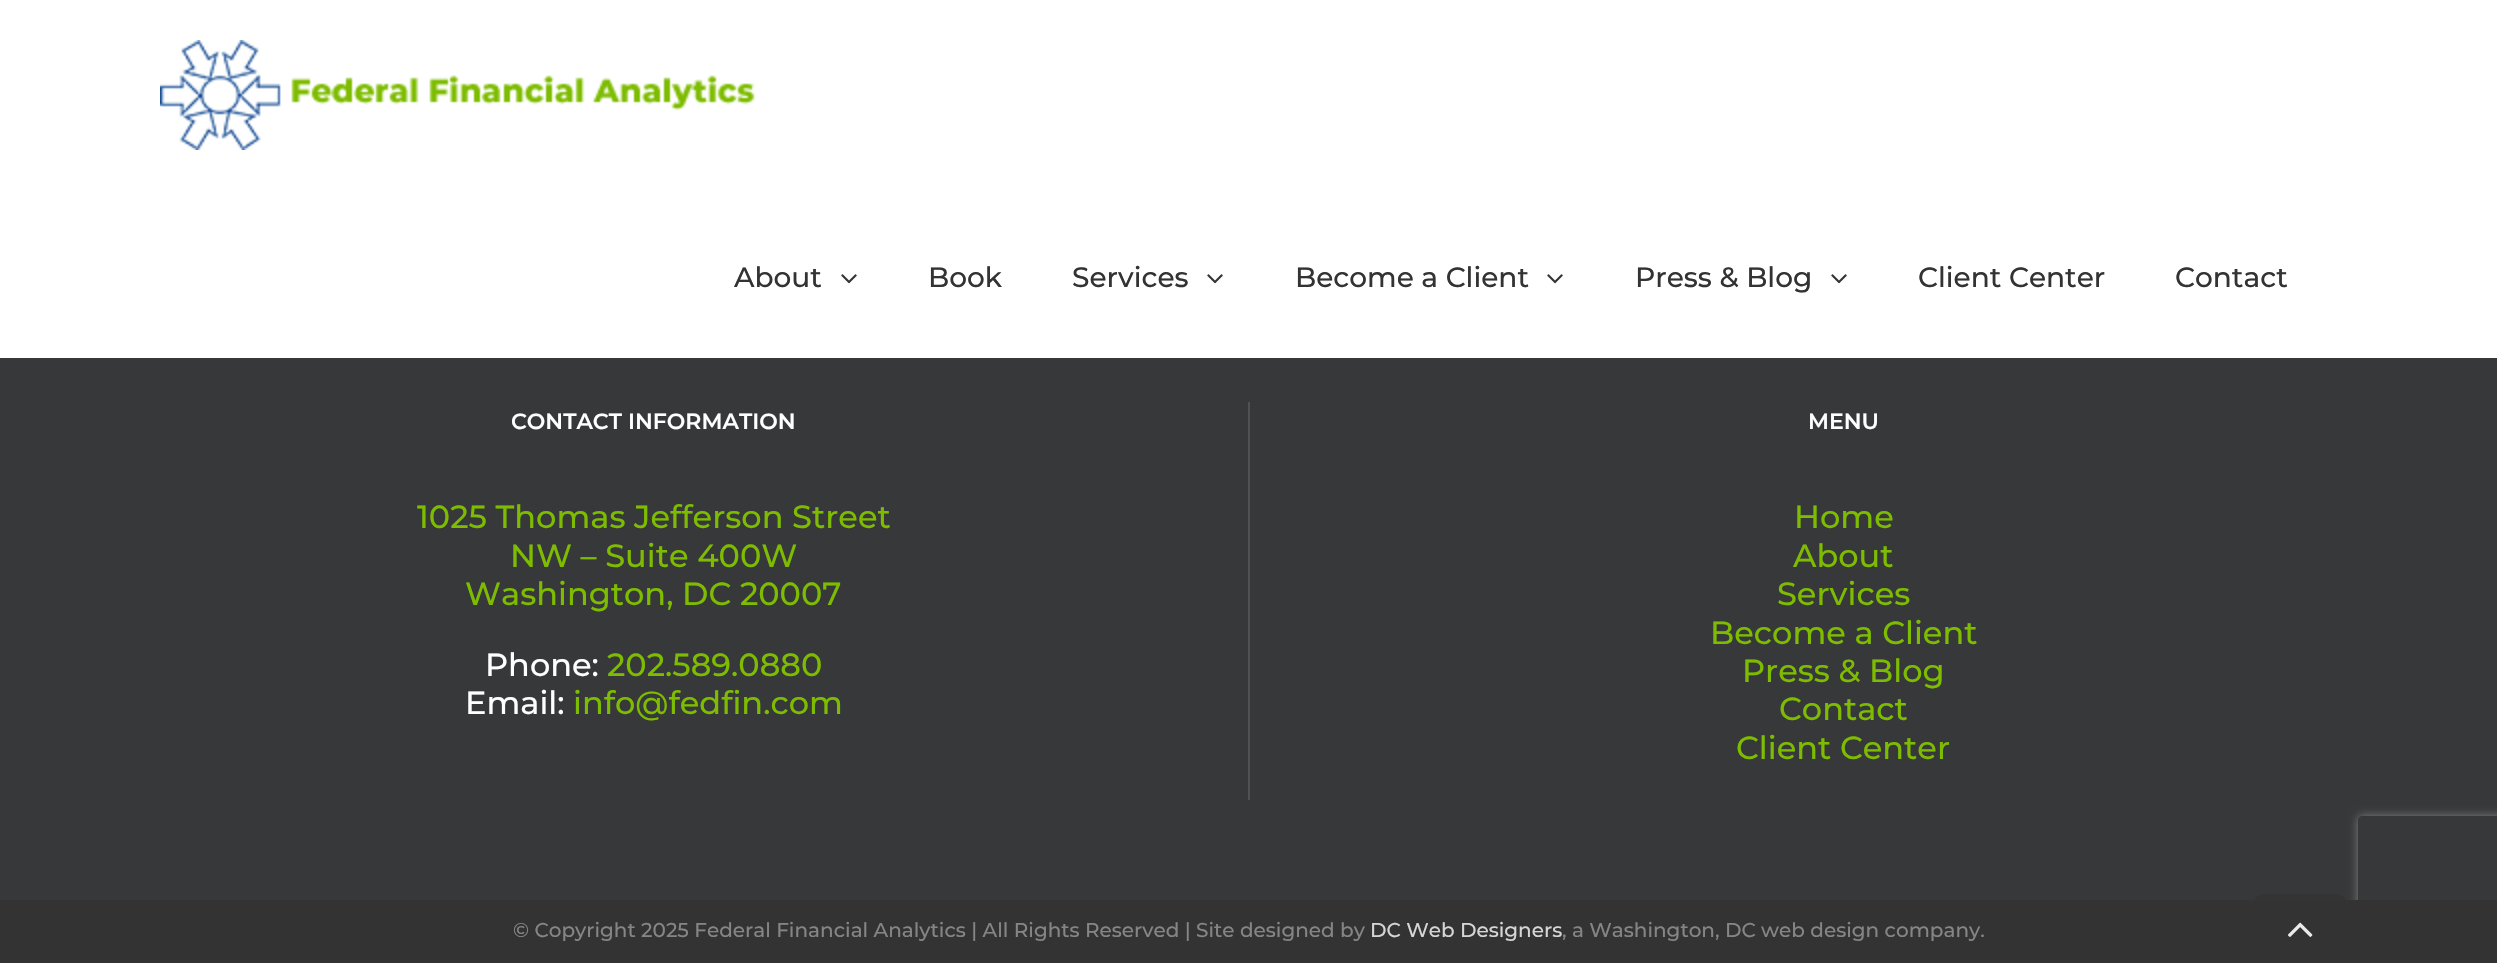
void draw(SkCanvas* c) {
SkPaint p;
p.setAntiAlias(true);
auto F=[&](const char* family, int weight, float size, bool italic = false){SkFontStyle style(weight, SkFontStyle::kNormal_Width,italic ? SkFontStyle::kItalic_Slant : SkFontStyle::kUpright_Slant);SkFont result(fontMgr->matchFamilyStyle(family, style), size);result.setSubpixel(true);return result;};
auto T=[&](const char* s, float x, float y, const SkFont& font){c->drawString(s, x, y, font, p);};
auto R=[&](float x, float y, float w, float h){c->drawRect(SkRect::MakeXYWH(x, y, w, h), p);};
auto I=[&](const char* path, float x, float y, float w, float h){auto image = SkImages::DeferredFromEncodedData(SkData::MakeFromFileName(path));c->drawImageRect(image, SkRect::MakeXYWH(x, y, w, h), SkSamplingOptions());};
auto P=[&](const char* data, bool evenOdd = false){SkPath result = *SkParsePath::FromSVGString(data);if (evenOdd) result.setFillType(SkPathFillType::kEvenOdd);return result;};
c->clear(0xff363839);
p.setColor(0xffffffff);
R(0,0,2497,358);
I("1.png",160,40,595,110);
auto f1 = F("Montserrat",500,28);
p.setColor(0xff333333);
T("About",734,287,f1);
I("2.png",841,274,16,10);
T("Book",928,287,f1);
T("Services",1072,287,f1);
I("2.png",1207,274,16,10);
T("Become a Client",1295,287,f1);
I("2.png",1547,274,16,10);
T("Press & Blog",1635,287,f1);
I("2.png",1831,274,16,10);
T("Client Center",1918,287,f1);
T("Contact",2175,287,f1);
p.setColor(0xff505152);
R(1248,402,2,398);
auto f2 = F("Montserrat",600,22);
p.setColor(0xffffffff);
T("CONTACT INFORMATION",511,429,f2);
auto f3 = F("Montserrat",500,32);
p.setColor(0xff7dbc00);
T("1025 Thomas Jefferson Street",417,528,f3);
T("NW – Suite 400W",510,567,f3);
T("Washington, DC 20007",465,605,f3);
p.setColor(0xffffffff);
T("Phone:",485,676,f3);
p.setColor(0xff7dbc00);
T("202.589.0880",607,676,f3);
p.setColor(0xffffffff);
T("Email:",465,714,f3);
p.setColor(0xff7dbc00);
T("info@fedfin.com",573,714,f3);
p.setColor(0xffffffff);
T("MENU",1808,429,f2);
p.setColor(0xff7dbc00);
T("Home",1794,528,f3);
T("About",1793,567,f3);
T("Services",1777,605,f3);
T("Become a Client",1710,644,f3);
T("Press & Blog",1742,682,f3);
T("Contact",1779,720,f3);
T("Client Center",1736,759,f3);
c->save();
c->clipPath(P("M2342 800h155v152h-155zm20 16h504c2 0 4 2 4 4v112c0 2-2 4-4 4h-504c-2 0-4-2-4-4v-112c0-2 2-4 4-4z",true),true);
p.setColor(0xff808080);
p.setMaskFilter(SkMaskFilter::MakeBlur(kNormal_SkBlurStyle, 5));
c->drawRoundRect(SkRect::MakeXYWH(2358,816,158,120),4,4,p);
p.setMaskFilter(nullptr);
c->restore();
p.setColor(0xff333333);
R(0,900,2497,63);
auto f4 = F("Montserrat",500,20);
p.setColor(0xff858585);
T("© Copyright 2025 Federal Financial Analytics | All Rights Reserved | Site designed by",513,937,f4);
p.setColor(0xffd6d6d6);
T("DC Web Designers",1370,937,f4);
p.setColor(0xff858585);
T(", a Washington, DC web design company.",1562,937,f4);
p.setColor(0xe6333333);
c->drawPath(P("M2264 894h72c6.5 0 12 5.5 12 12v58h-96v-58c0-6.5 5.5-12 12-12z"),p);
I("3.png",2288,922,25,15);
}
